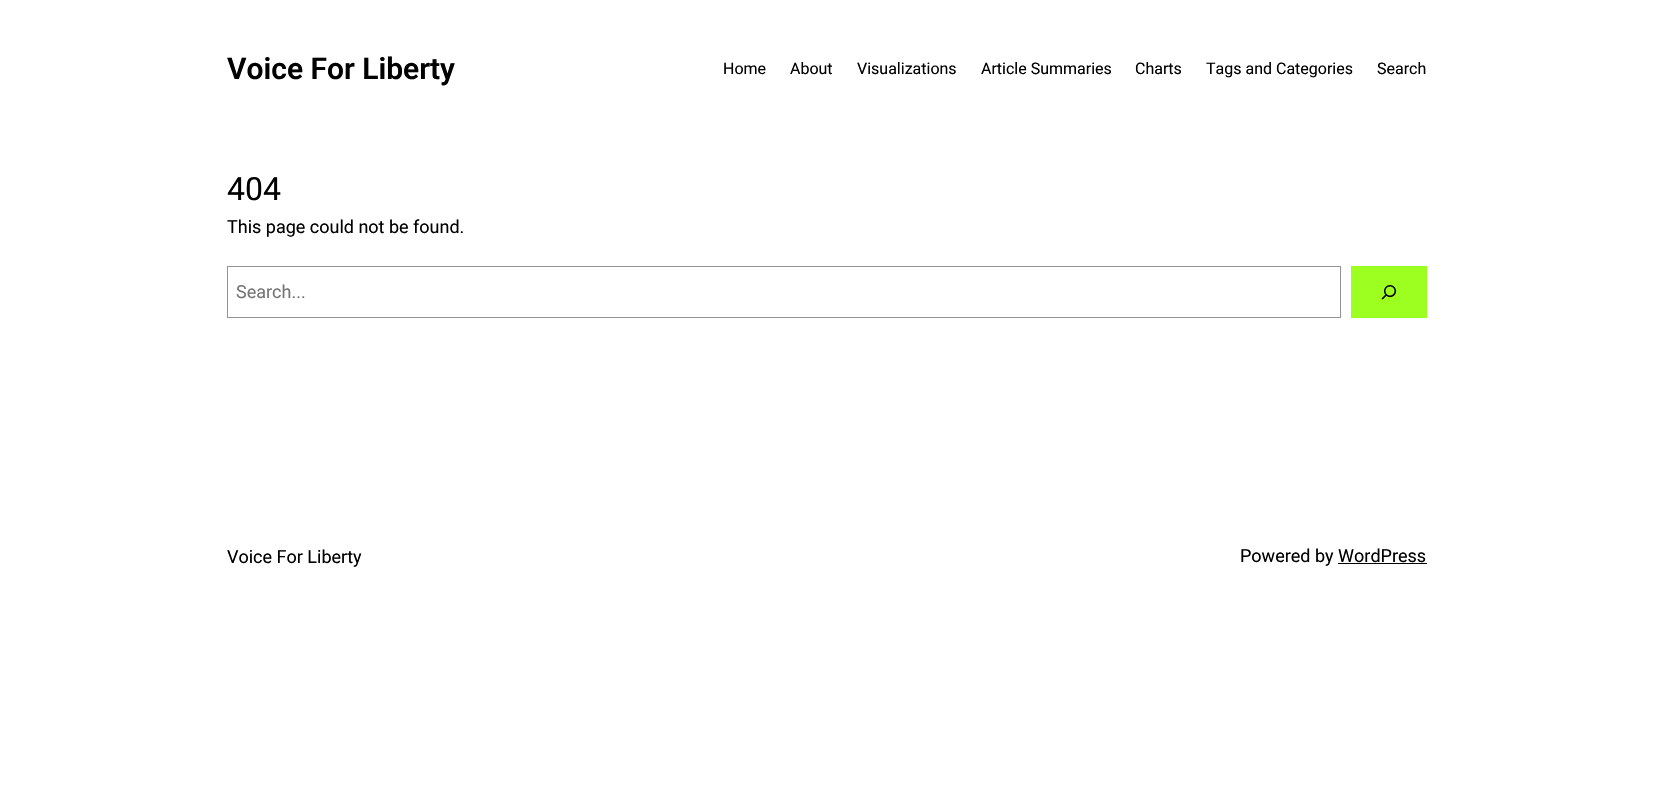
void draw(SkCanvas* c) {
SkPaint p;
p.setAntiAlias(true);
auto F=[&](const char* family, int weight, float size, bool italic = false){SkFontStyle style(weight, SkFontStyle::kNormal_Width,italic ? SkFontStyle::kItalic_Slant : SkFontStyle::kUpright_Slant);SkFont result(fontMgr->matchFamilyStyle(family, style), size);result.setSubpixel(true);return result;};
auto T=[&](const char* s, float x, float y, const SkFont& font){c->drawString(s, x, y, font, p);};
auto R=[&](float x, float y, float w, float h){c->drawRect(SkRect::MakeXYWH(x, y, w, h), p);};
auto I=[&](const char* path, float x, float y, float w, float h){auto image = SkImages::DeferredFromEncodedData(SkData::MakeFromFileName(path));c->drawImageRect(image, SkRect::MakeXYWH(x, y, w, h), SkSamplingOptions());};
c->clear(0xffffffff);
auto f1 = F("Roboto",600,30);
p.setColor(0xff000000);
T("Voice For Liberty",227,79,f1);
auto f2 = F("Roboto",400,16);
T("Home",723,74,f2);
T("About",790,74,f2);
T("Visualizations",857,74,f2);
T("Article Summaries",981,74,f2);
T("Charts",1135,74,f2);
T("Tags and Categories",1206,74,f2);
T("Search",1377,74,f2);
auto f3 = F("Roboto",400,32);
T("404",227,200,f3);
auto f4 = F("Roboto",400,18);
T("This page could not be found.",227,233,f4);
p.setStroke(true);
p.setStrokeWidth(1);
p.setColor(0xff949494);
c->drawRect(SkRect::MakeXYWH(227.5,266.5,1113,51),p);
p.setStroke(false);
p.setColor(0xff757575);
T("Search...",236,298,f4);
p.setColor(0xff9dff20);
R(1351,266,76,52);
I("1.png",1381,285,16,15);
p.setColor(0xff000000);
T("Voice For Liberty",227,563,f4);
T("Powered by WordPress",1240,562,f4);
R(1338,563,89,1);
}
